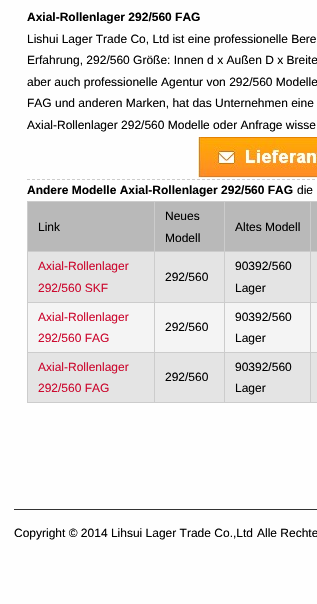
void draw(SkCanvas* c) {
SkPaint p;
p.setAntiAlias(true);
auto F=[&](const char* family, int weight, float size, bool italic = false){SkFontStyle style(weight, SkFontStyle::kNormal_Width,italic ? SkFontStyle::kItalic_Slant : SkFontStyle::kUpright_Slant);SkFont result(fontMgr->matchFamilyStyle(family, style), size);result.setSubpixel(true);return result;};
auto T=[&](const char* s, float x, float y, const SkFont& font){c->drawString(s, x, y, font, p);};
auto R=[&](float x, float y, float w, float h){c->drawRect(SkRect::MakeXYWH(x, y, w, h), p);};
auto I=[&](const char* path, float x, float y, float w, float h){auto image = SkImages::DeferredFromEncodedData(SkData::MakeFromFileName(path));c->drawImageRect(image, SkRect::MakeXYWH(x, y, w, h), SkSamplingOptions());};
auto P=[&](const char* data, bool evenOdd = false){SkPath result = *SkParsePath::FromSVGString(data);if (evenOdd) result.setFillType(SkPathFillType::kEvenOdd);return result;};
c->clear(0xfffefefe);
auto f1 = F("Liberation Sans",700,12);
p.setColor(0xff000000);
T("Axial-Rollenlager 292/560 FAG",27,21,f1);
auto f2 = F("Liberation Sans",400,12);
T("Lishui Lager Trade Co, Ltd ist eine professionelle Bere",27,43,f2);
T("Erfahrung, 292/560 Größe: Innen d x Außen D x Breite",27,64,f2);
T("aber auch professionelle Agentur von 292/560 Modelle",27,86,f2);
T("FAG und anderen Marken, hat das Unternehmen eine",27,107,f2);
T("Axial-Rollenlager 292/560 Modelle oder Anfrage wisse",27,129,f2);
I("1.png",198,137,119,41);
p.setStroke(true);
p.setStrokeWidth(1);
p.setColor(0xffcccccc);
p.setPathEffect(SkDashPathEffect::Make({{3,2}}, 0));
c->drawPath(P("M27 179.5h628"),p);
p.setPathEffect(nullptr);
p.setStroke(false);
p.setColor(0xff000000);
T("Andere Modelle Axial-Rollenlager 292/560 FAG",27,194,f1);
T("die",297,194,f2);
p.setColor(0xffb9b9b9);
R(28,202,289,49);
p.setColor(0xffcccccc);
R(310,201,7,1);
R(310,251,7,1);
p.setColor(0xffe4e4e4);
R(28,252,289,50);
p.setColor(0xffcccccc);
R(310,302,7,1);
p.setColor(0xfff4f4f4);
R(28,303,289,49);
p.setColor(0xffcccccc);
R(310,352,7,1);
p.setColor(0xffe4e4e4);
R(28,353,289,49);
p.setColor(0xffcccccc);
R(310,402,7,1);
R(310,352,1,51);
R(224,352,87,1);
R(310,302,1,51);
R(224,302,87,1);
R(310,251,1,52);
R(224,251,87,1);
R(310,201,1,51);
R(224,201,87,1);
R(224,402,87,1);
R(224,352,1,51);
R(154,352,71,1);
R(224,302,1,51);
R(154,302,71,1);
R(224,251,1,52);
R(154,251,71,1);
R(224,201,1,51);
R(154,201,71,1);
R(154,402,71,1);
R(154,352,1,51);
R(27,352,128,1);
R(154,302,1,51);
R(27,302,128,1);
R(154,251,1,52);
R(27,251,128,1);
R(154,201,1,51);
R(27,201,128,1);
R(27,402,128,1);
R(27,352,1,51);
R(27,302,1,51);
R(27,251,1,52);
R(27,201,1,51);
p.setColor(0xff000000);
T("Link",38,231,f2);
T("Neues",165,220,f2);
T("Modell",165,242,f2);
T("Altes Modell",235,231,f2);
p.setColor(0xffcc092f);
T("Axial-Rollenlager",38,270,f2);
T("292/560 SKF",38,292,f2);
p.setColor(0xff000000);
T("292/560",165,281,f2);
T("90392/560",235,270,f2);
T("Lager",235,292,f2);
p.setColor(0xffcc092f);
T("Axial-Rollenlager",38,321,f2);
T("292/560 FAG",38,342,f2);
p.setColor(0xff000000);
T("292/560",165,331,f2);
T("90392/560",235,321,f2);
T("Lager",235,342,f2);
p.setColor(0xffcc092f);
T("Axial-Rollenlager",38,371,f2);
T("292/560 FAG",38,392,f2);
p.setColor(0xff000000);
T("292/560",165,381,f2);
T("90392/560",235,371,f2);
T("Lager",235,392,f2);
p.setColor(0xff333333);
R(14,509,303,1);
p.setColor(0xff000000);
T("Copyright © 2014 Lihsui Lager Trade Co.,Ltd",14,537,f2);
T("Alle Rechte",257,537,f2);
}
